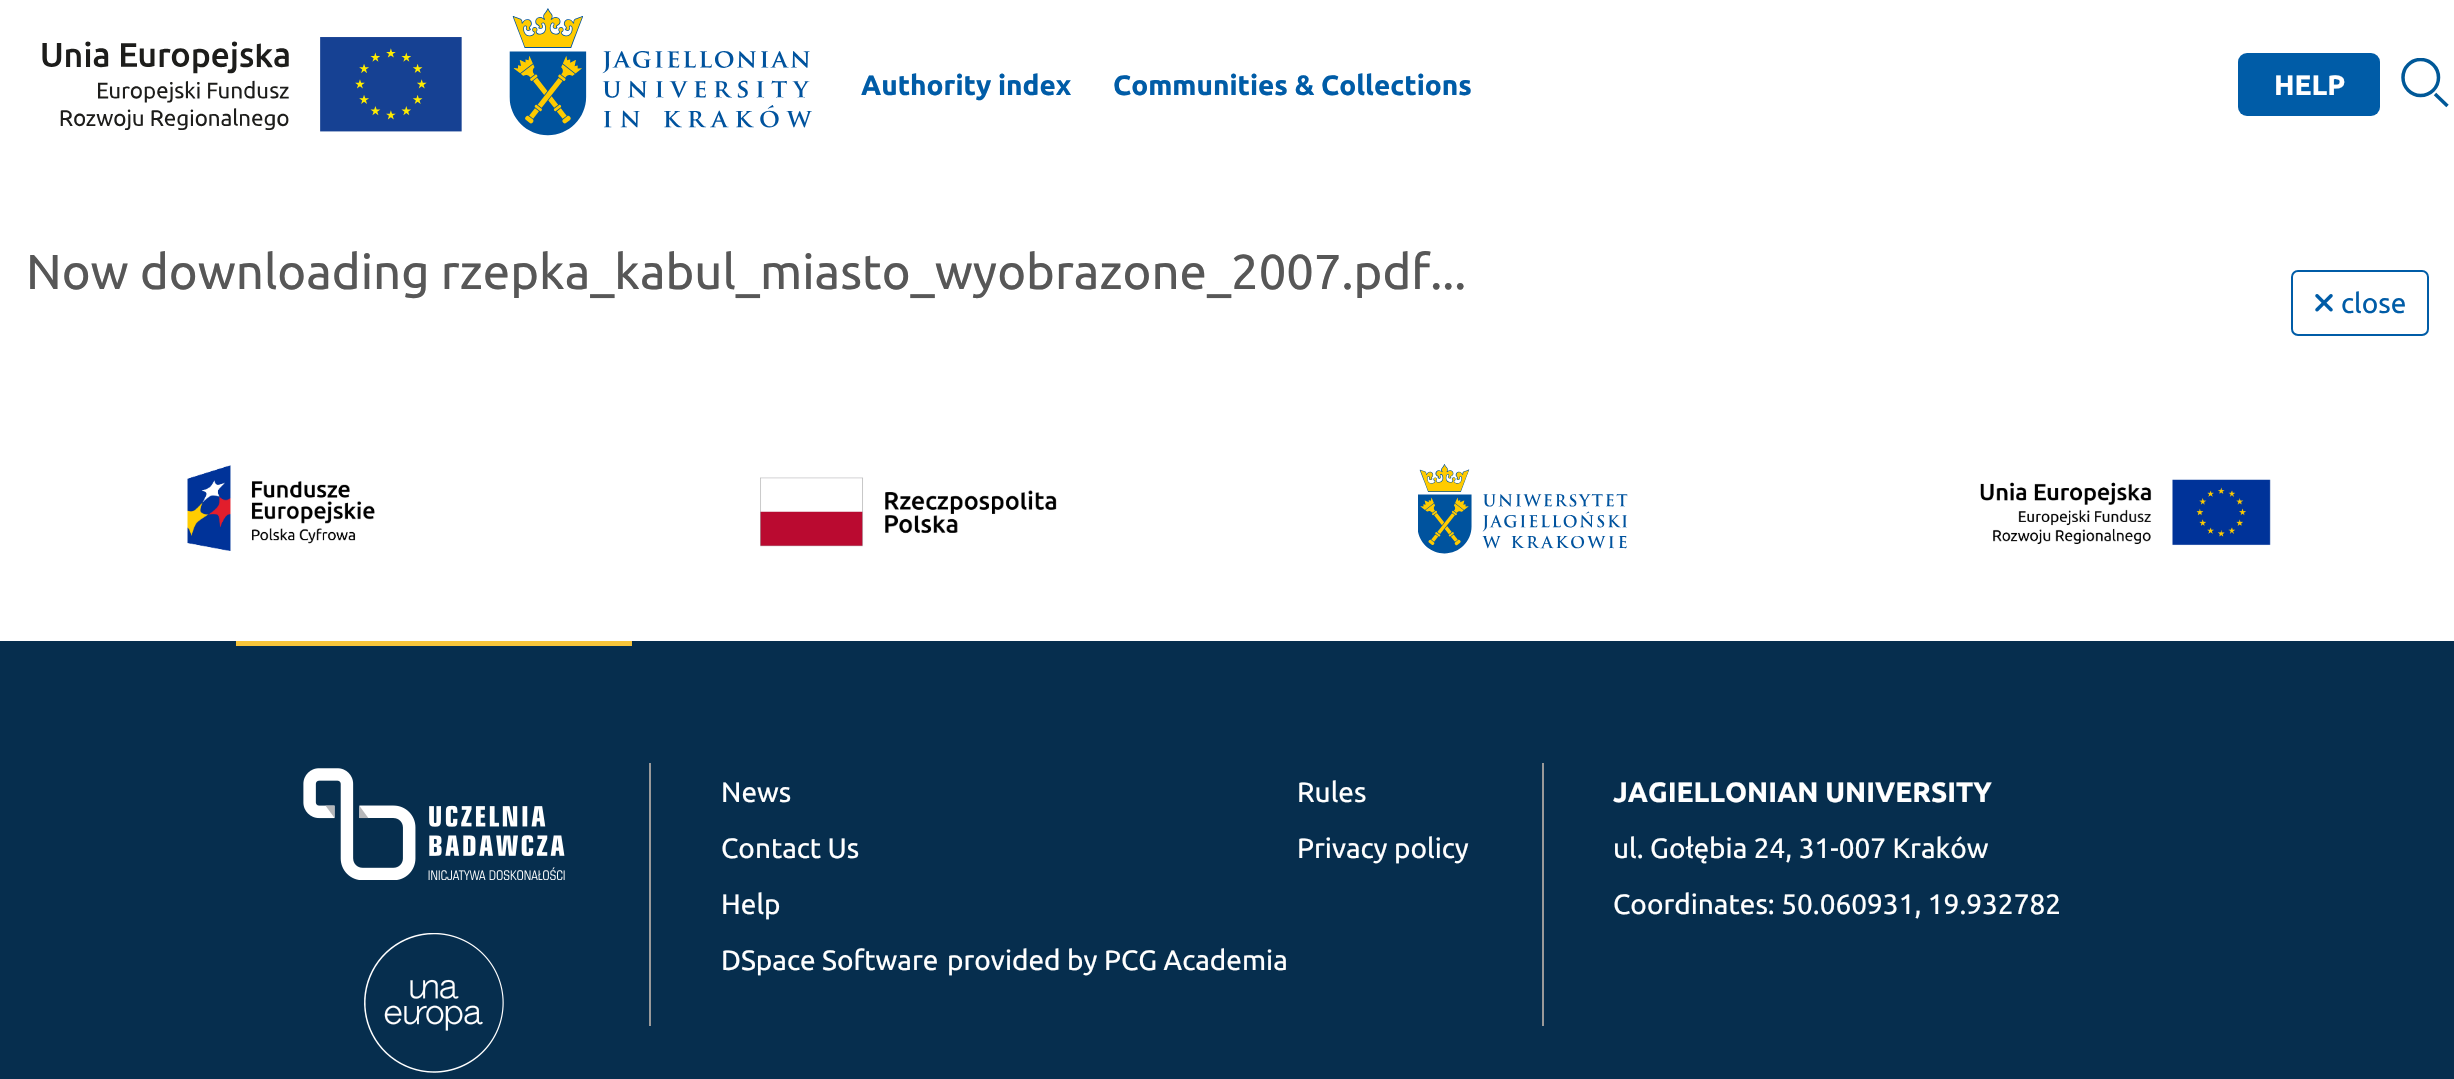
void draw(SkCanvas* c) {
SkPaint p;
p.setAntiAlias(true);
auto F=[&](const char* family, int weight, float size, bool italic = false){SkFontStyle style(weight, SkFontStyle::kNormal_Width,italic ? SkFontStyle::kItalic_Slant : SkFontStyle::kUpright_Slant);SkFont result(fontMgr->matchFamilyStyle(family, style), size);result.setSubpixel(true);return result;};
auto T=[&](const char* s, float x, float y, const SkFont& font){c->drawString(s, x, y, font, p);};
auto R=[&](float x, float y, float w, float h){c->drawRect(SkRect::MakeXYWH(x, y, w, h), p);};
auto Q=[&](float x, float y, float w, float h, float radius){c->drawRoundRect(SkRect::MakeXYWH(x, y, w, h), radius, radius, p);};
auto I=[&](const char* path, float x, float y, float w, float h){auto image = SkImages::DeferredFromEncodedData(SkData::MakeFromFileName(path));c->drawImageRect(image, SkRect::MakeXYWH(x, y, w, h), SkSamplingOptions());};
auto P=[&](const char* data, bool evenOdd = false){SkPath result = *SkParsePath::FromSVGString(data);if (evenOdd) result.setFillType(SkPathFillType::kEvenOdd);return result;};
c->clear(0xffffffff);
I("1.png",42,37,420,95);
I("2.png",509,8,303,128);
auto f1 = F("Ubuntu",700,28);
p.setColor(0xff005ca7);
T("Authority index",861,95,f1);
T("Communities & Collections",1113,95,f1);
Q(2238,53,142,63,9);
p.setColor(0xffffffff);
T("HELP",2274,95,f1);
c->save();
c->clipRect(SkRect::MakeXYWH(2401,58,51,52));
p.setStroke(true);
p.setStrokeWidth(3.5);
p.setColor(0xff005898);
c->drawPath(P("M2438.5 77.5c0 10-8 18-18 18c-9.5 0-17.5-8-17.5-18c0-10 8-18 17.5-18c10 0 18 8 18 18z"),p);
c->restore();
c->drawPath(P("M2435 94l12.5 12z"),p);
auto f2 = F("Ubuntu",400,49);
p.setStroke(false);
p.setColor(0xff575757);
T("Now downloading rzepka_kabul_miasto_wyobrazone_2007.pdf...",26,289,f2);
p.setStroke(true);
p.setStrokeWidth(2);
p.setColor(0xff005ca7);
c->drawRoundRect(SkRect::MakeXYWH(2292,271,136,64),6,6,p);
I("3.png",2315,294,18,18);
auto f3 = F("Ubuntu",400,28);
p.setStroke(false);
T("close",2341,313,f3);
I("4.png",187,465,188,86);
I("5.png",760,477,297,70);
I("6.png",1418,464,210,90);
I("7.png",1980,479,291,67);
p.setColor(0xff062e4e);
R(0,641,2454,438);
p.setColor(0xfff8c53a);
R(236,641,396,5);
I("8.png",303,768,262,112);
I("9.png",364,933,140,140);
p.setColor(0xff999999);
R(1542,763,2,263);
R(649,763,2,263);
p.setColor(0xffffffff);
T("News",721,802,f3);
T("Rules",1297,802,f3);
T("Contact Us",721,858,f3);
T("Privacy policy",1297,858,f3);
T("Help",721,914,f3);
T("DSpace Software",721,970,f3);
T("provided by PCG Academia",947,970,f3);
T("JAGIELLONIAN UNIVERSITY",1613,802,f1);
T("ul. Gołębia 24, 31-007 Kraków",1613,858,f3);
T("Coordinates: 50.060931, 19.932782",1613,914,f3);
}
